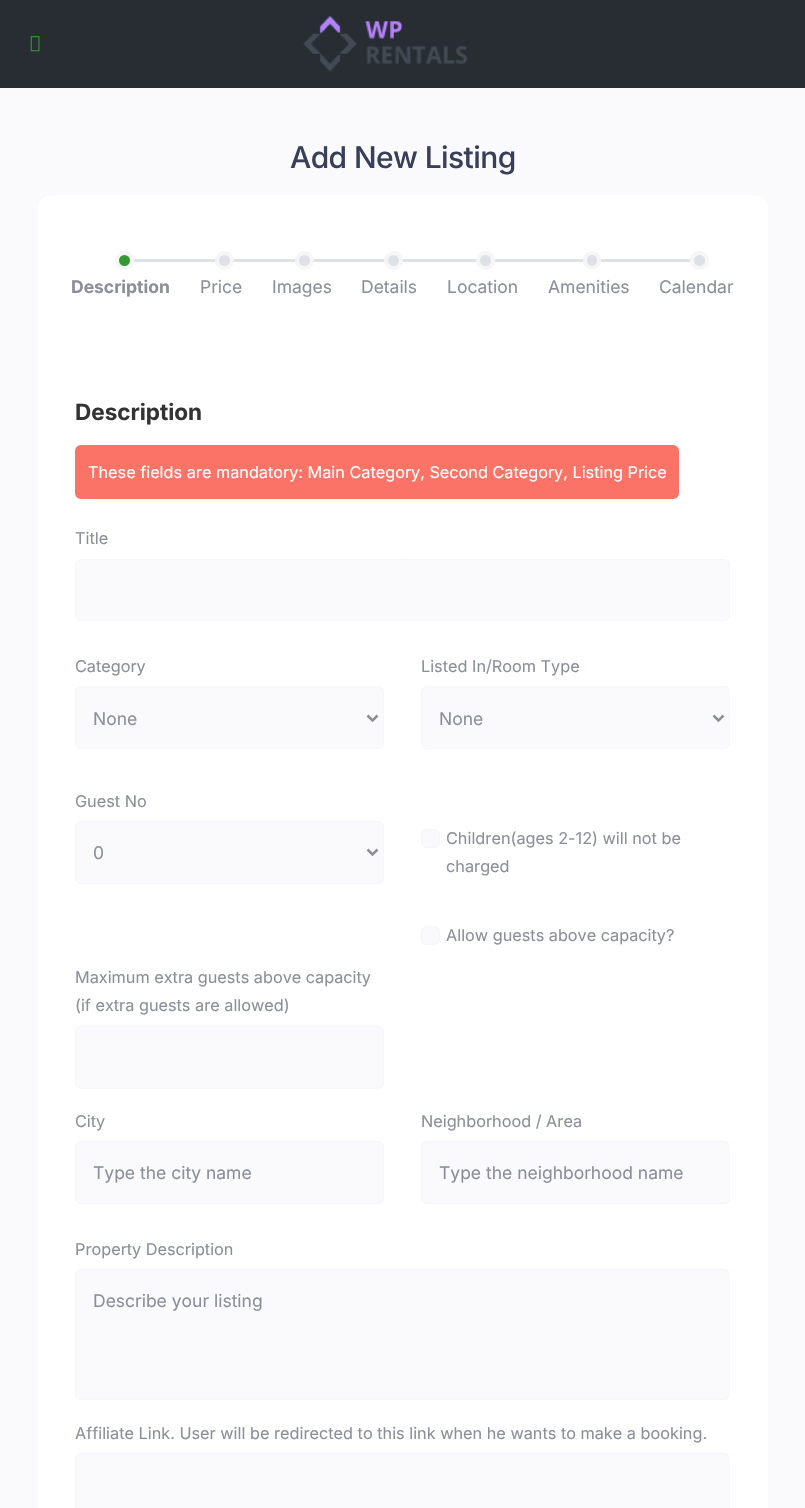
void draw(SkCanvas* c) {
SkPaint p;
p.setAntiAlias(true);
auto F=[&](const char* family, int weight, float size, bool italic = false){SkFontStyle style(weight, SkFontStyle::kNormal_Width,italic ? SkFontStyle::kItalic_Slant : SkFontStyle::kUpright_Slant);SkFont result(fontMgr->matchFamilyStyle(family, style), size);result.setSubpixel(true);return result;};
auto T=[&](const char* s, float x, float y, const SkFont& font){c->drawString(s, x, y, font, p);};
auto L=[&](const char* s, float x, float y, const SkFont& font, const SkPaint& ink, float letter, float word){std::vector<SkGlyphID> glyphs(font.countText(s, strlen(s), SkTextEncoding::kUTF8));std::vector<float> xs(glyphs.size());font.textToGlyphs(s, strlen(s), SkTextEncoding::kUTF8, glyphs);font.getXPos(glyphs, xs, x);float extra = 0;for (size_t i = 0; i < glyphs.size(); i++) {xs[i] += extra;extra += letter + word * (glyphs[i] == font.unicharToGlyph(' '));}c->drawTextBlob(SkTextBlob::MakeFromPosHGlyphs(glyphs, xs, y, font), 0, 0, ink);};
auto R=[&](float x, float y, float w, float h){c->drawRect(SkRect::MakeXYWH(x, y, w, h), p);};
auto Q=[&](float x, float y, float w, float h, float radius){c->drawRoundRect(SkRect::MakeXYWH(x, y, w, h), radius, radius, p);};
auto I=[&](const char* path, float x, float y, float w, float h){auto image = SkImages::DeferredFromEncodedData(SkData::MakeFromFileName(path));c->drawImageRect(image, SkRect::MakeXYWH(x, y, w, h), SkSamplingOptions());};
auto P=[&](const char* data, bool evenOdd = false){SkPath result = *SkParsePath::FromSVGString(data);if (evenOdd) result.setFillType(SkPathFillType::kEvenOdd);return result;};
c->clear(0xfffafafc);
p.setColor(0xff282d33);
R(0,0,805,88);
I("1.png",30,36,10,16);
I("2.png",303,16,165,56);
auto f1 = F("Inter",500,30);
p.setColor(0xff383f5b);
L("Add New Listing",290,168,f1,p,-.6,0);
p.setColor(0xffffffff);
Q(38,195,730,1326,13);
p.setColor(0xffdee2e8);
R(133,259,83,3);
p.setColor(0xff339933);
c->drawCircle(124.5,260.5,7.5,p);
p.setStroke(true);
p.setStrokeWidth(4);
p.setColor(0xfff6f6f6);
c->drawCircle(124.5,260.5,7.5,p);
auto f2 = F("Inter",700,17.5);
p.setStroke(false);
p.setColor(0xff8a8f9a);
T("Description",71,293,f2);
p.setColor(0xffdee2e8);
R(233,259,67,3);
c->drawCircle(224.5,260.5,7.5,p);
p.setStroke(true);
p.setColor(0xfff6f6f6);
c->drawCircle(224.5,260.5,7.5,p);
auto f3 = F("Inter",400,17.5);
p.setStroke(false);
p.setColor(0xff8a8f9a);
T("Price",200,293,f3);
p.setColor(0xffdee2e8);
R(313,259,72,3);
c->drawCircle(304.5,260.5,7.5,p);
p.setStroke(true);
p.setColor(0xfff6f6f6);
c->drawCircle(304.5,260.5,7.5,p);
p.setStroke(false);
p.setColor(0xff8a8f9a);
T("Images",272,293,f3);
p.setColor(0xffdee2e8);
R(402,259,81,3);
c->drawCircle(393.5,260.5,7.5,p);
p.setStroke(true);
p.setColor(0xfff6f6f6);
c->drawCircle(393.5,260.5,7.5,p);
p.setStroke(false);
p.setColor(0xff8a8f9a);
T("Details",361,293,f3);
p.setColor(0xffdee2e8);
R(494,259,97,3);
c->drawCircle(485.5,260.5,7.5,p);
p.setStroke(true);
p.setColor(0xfff6f6f6);
c->drawCircle(485.5,260.5,7.5,p);
p.setStroke(false);
p.setColor(0xff8a8f9a);
T("Location",447,293,f3);
p.setColor(0xffdee2e8);
R(600,259,91,3);
c->drawRoundRect(SkRect::MakeXYWH(585,253,14,15),7,7,p);
p.setStroke(true);
p.setColor(0xfff6f6f6);
c->drawRoundRect(SkRect::MakeXYWH(585,253,14,15),7,7,p);
p.setStroke(false);
p.setColor(0xff8a8f9a);
T("Amenities",548,293,f3);
p.setColor(0xffdee2e8);
c->drawCircle(699.5,260.5,7.5,p);
p.setStroke(true);
p.setColor(0xfff6f6f6);
c->drawCircle(699.5,260.5,7.5,p);
p.setStroke(false);
p.setColor(0xff8a8f9a);
T("Calendar",659,293,f3);
auto f4 = F("Inter",700,22.5);
p.setColor(0xff333333);
T("Description",75,420,f4);
p.setColor(0xfffb7266);
Q(75,445,604,54,6);
auto f5 = F("Inter",400,16.25);
p.setColor(0xffffffff);
T("These fields are mandatory: Main Category, Second Category, Listing Price",88,478,f5);
p.setColor(0xff8a8f9a);
T("Title",75,544,f5);
p.setColor(0xfffafafc);
c->drawRoundRect(SkRect::MakeXYWH(75.5,559.5,654,61),5.5,5.5,p);
p.setStroke(true);
p.setStrokeWidth(1);
p.setColor(0xfff6f4ff);
c->drawRoundRect(SkRect::MakeXYWH(75.5,559.5,654,61),5.5,5.5,p);
p.setStroke(false);
p.setColor(0xff8a8f9a);
T("Category",75,672,f5);
p.setColor(0xfffafafc);
c->drawRoundRect(SkRect::MakeXYWH(75.5,686.5,308,62),5.5,5.5,p);
p.setStroke(true);
p.setColor(0xfff6f4ff);
c->drawRoundRect(SkRect::MakeXYWH(75.5,686.5,308,62),5.5,5.5,p);
p.setStrokeWidth(2.5);
p.setColor(0xff8a8f9a);
c->drawPath(P("M367.5 715.5l5 5l5-5"),p);
p.setStroke(false);
T("None",93,725,f3);
T("Listed In/Room Type",421,672,f5);
p.setColor(0xfffafafc);
c->drawRoundRect(SkRect::MakeXYWH(421.5,686.5,308,62),5.5,5.5,p);
p.setStroke(true);
p.setStrokeWidth(1);
p.setColor(0xfff6f4ff);
c->drawRoundRect(SkRect::MakeXYWH(421.5,686.5,308,62),5.5,5.5,p);
p.setStrokeWidth(2.5);
p.setColor(0xff8a8f9a);
c->drawPath(P("M713.5 715.5l5 5l5-5"),p);
p.setStroke(false);
T("None",439,725,f3);
T("Guest No",75,807,f5);
p.setColor(0xfffafafc);
c->drawRoundRect(SkRect::MakeXYWH(75.5,821.5,308,62),5.5,5.5,p);
p.setStroke(true);
p.setStrokeWidth(1);
p.setColor(0xfff6f4ff);
c->drawRoundRect(SkRect::MakeXYWH(75.5,821.5,308,62),5.5,5.5,p);
p.setStrokeWidth(2.5);
p.setColor(0xff8a8f9a);
c->drawPath(P("M367.5 849.5l5 5l5-5"),p);
p.setStroke(false);
T("0",93,859,f3);
p.setColor(0xfffafafc);
c->drawRoundRect(SkRect::MakeXYWH(421.5,829.5,18,18),5.5,5.5,p);
p.setStroke(true);
p.setStrokeWidth(1);
p.setColor(0xfff6f4ff);
c->drawRoundRect(SkRect::MakeXYWH(421.5,829.5,18,18),5.5,5.5,p);
p.setStroke(false);
p.setColor(0xff8a8f9a);
T("Children(ages 2-12) will not be",446,844,f5);
T("charged",446,872,f5);
p.setColor(0xfffafafc);
c->drawRoundRect(SkRect::MakeXYWH(421.5,926.5,18,18),5.5,5.5,p);
p.setStroke(true);
p.setColor(0xfff6f4ff);
c->drawRoundRect(SkRect::MakeXYWH(421.5,926.5,18,18),5.5,5.5,p);
p.setStroke(false);
p.setColor(0xff8a8f9a);
T("Allow guests above capacity?",446,941,f5);
T("Maximum extra guests above capacity",75,983,f5);
T("(if extra guests are allowed)",75,1011,f5);
p.setColor(0xfffafafc);
c->drawRoundRect(SkRect::MakeXYWH(75.5,1026.5,308,62),5.5,5.5,p);
p.setStroke(true);
p.setColor(0xfff6f4ff);
c->drawRoundRect(SkRect::MakeXYWH(75.5,1026.5,308,62),5.5,5.5,p);
p.setStroke(false);
p.setColor(0xff8a8f9a);
T("City",75,1127,f5);
p.setColor(0xfffafafc);
c->drawRoundRect(SkRect::MakeXYWH(75.5,1141.5,308,62),5.5,5.5,p);
p.setStroke(true);
p.setColor(0xfff6f4ff);
c->drawRoundRect(SkRect::MakeXYWH(75.5,1141.5,308,62),5.5,5.5,p);
p.setStroke(false);
p.setColor(0xff8a8f9a);
T("Type the city name",93,1179,f3);
T("Neighborhood / Area",421,1127,f5);
p.setColor(0xfffafafc);
c->drawRoundRect(SkRect::MakeXYWH(421.5,1141.5,308,62),5.5,5.5,p);
p.setStroke(true);
p.setColor(0xfff6f4ff);
c->drawRoundRect(SkRect::MakeXYWH(421.5,1141.5,308,62),5.5,5.5,p);
p.setStroke(false);
p.setColor(0xff8a8f9a);
T("Type the neighborhood name",439,1179,f3);
T("Property Description",75,1255,f5);
p.setColor(0xfffafafc);
c->drawRoundRect(SkRect::MakeXYWH(75.5,1269.5,654,130),5.5,5.5,p);
p.setStroke(true);
p.setColor(0xfff6f4ff);
c->drawRoundRect(SkRect::MakeXYWH(75.5,1269.5,654,130),5.5,5.5,p);
p.setStroke(false);
p.setColor(0xff8a8f9a);
T("Describe your listing",93,1307,f3);
T("Affiliate Link. User will be redirected to this link when he wants to make a booking.",75,1439,f5);
p.setColor(0xfffafafc);
c->drawRoundRect(SkRect::MakeXYWH(75.5,1453.5,654,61),5.5,5.5,p);
p.setStroke(true);
p.setColor(0xfff6f4ff);
c->drawRoundRect(SkRect::MakeXYWH(75.5,1453.5,654,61),5.5,5.5,p);
}
